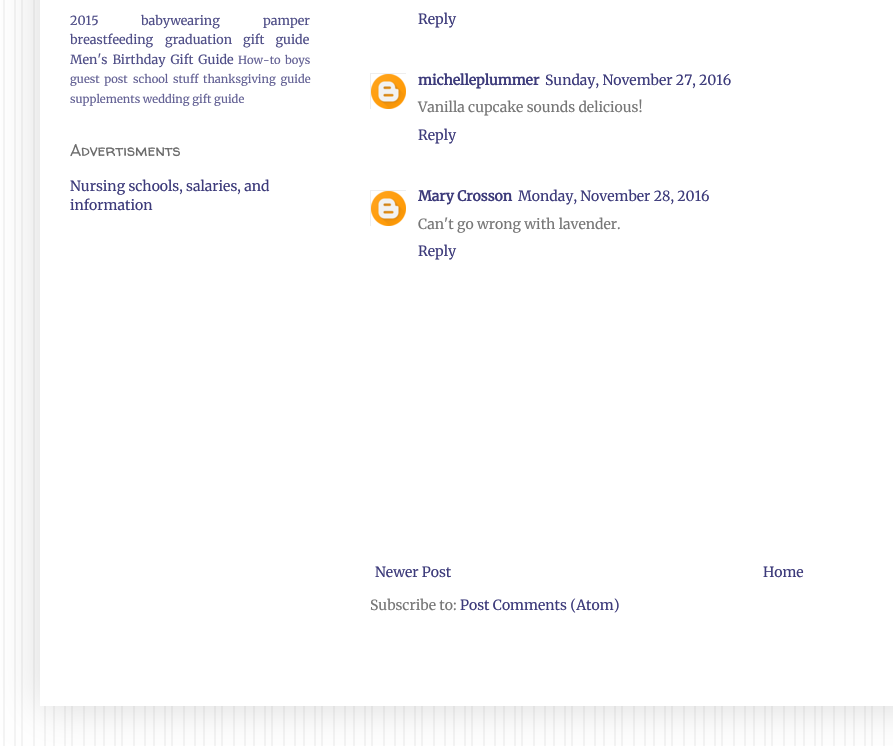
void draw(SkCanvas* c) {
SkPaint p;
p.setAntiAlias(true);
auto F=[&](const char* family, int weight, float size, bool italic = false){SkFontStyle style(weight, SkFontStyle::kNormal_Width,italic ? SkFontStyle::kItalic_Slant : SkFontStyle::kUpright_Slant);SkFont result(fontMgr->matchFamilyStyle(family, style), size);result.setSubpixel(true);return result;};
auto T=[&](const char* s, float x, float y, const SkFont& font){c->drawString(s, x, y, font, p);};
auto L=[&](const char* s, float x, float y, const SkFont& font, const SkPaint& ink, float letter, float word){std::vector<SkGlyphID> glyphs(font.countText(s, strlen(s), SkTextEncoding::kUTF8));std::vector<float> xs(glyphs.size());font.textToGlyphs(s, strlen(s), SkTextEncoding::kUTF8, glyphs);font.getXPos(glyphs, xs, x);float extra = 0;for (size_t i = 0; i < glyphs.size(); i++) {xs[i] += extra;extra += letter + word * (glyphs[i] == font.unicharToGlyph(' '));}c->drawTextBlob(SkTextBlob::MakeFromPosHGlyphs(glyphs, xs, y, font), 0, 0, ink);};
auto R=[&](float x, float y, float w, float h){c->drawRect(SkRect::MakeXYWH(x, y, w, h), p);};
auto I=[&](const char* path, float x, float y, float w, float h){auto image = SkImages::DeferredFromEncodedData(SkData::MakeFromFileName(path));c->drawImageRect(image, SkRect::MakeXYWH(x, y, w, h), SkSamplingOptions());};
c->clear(0xffffffff);
I("1.png",0,0,893,746);
p.setColor(0x26000000);
p.setMaskFilter(SkMaskFilter::MakeBlur(kNormal_SkBlurStyle, 20));
c->drawRect(SkRect::MakeXYWH(40,-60,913,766),p);
p.setMaskFilter(nullptr);
p.setColor(0xffffffff);
R(40,0,853,706);
auto f1 = F("Merriweather",300,12.6);
p.setColor(0xff504f88);
T("2015",70,25,f1);
T("babywearing",141,25,f1);
T("pamper",263,25,f1);
T("breastfeeding",70,44,f1);
L("graduation gift guide",165,44,f1,p,0,8);
L("Men's Birthday Gift Guide",70,64,f1,p,0,2);
auto f2 = F("Merriweather",300,11.25);
p.setColor(0xff646295);
T("How-to",238,64,f2);
T("boys",285,64,f2);
L("guest post",70,83,f2,p,0,2);
L("school stuff",133,83,f2,p,0,2);
L("thanksgiving guide",203,83,f2,p,0,2);
T("supplements wedding gift guide",70,103,f2);
auto f3 = F("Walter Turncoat",400,16);
p.setColor(0xff6c6c6c);
T("Advertisments",70,156,f3);
auto f4 = F("Merriweather",300,14);
p.setColor(0xff3d3b7b);
T("Nursing schools, salaries, and",70,191,f4);
T("information",70,210,f4);
T("Reply",418,24,f4);
c->save();
c->clipRect(SkRect::MakeXYWH(370,73,36,36));
p.setStroke(true);
p.setStrokeWidth(1);
p.setColor(0xffeeeeee);
c->drawRect(SkRect::MakeXYWH(370.5,73.5,36,36),p);
c->restore();
I("2.png",371,74,35,35);
auto f5 = F("Merriweather",700,14);
p.setStroke(false);
p.setColor(0xff3d3b7b);
T("michelleplummer",418,85,f5);
T("Sunday, November 27, 2016",545,85,f4);
p.setColor(0xff777777);
T("Vanilla cupcake sounds delicious!",418,112,f4);
p.setColor(0xff3d3b7b);
T("Reply",418,140,f4);
c->save();
c->clipRect(SkRect::MakeXYWH(370,190,36,36));
p.setStroke(true);
p.setColor(0xffeeeeee);
c->drawRect(SkRect::MakeXYWH(370.5,190.5,36,36),p);
c->restore();
I("2.png",371,191,35,35);
p.setStroke(false);
p.setColor(0xff3d3b7b);
T("Mary Crosson",418,201,f5);
T("Monday, November 28, 2016",518,201,f4);
p.setColor(0xff777777);
T("Can't go wrong with lavender.",418,229,f4);
p.setColor(0xff3d3b7b);
T("Reply",418,256,f4);
T("Newer Post",375,577,f4);
T("Home",763,577,f4);
p.setColor(0xff777777);
T("Subscribe to:",370,610,f4);
p.setColor(0xff3d3b7b);
T("Post Comments (Atom)",460,610,f4);
}
